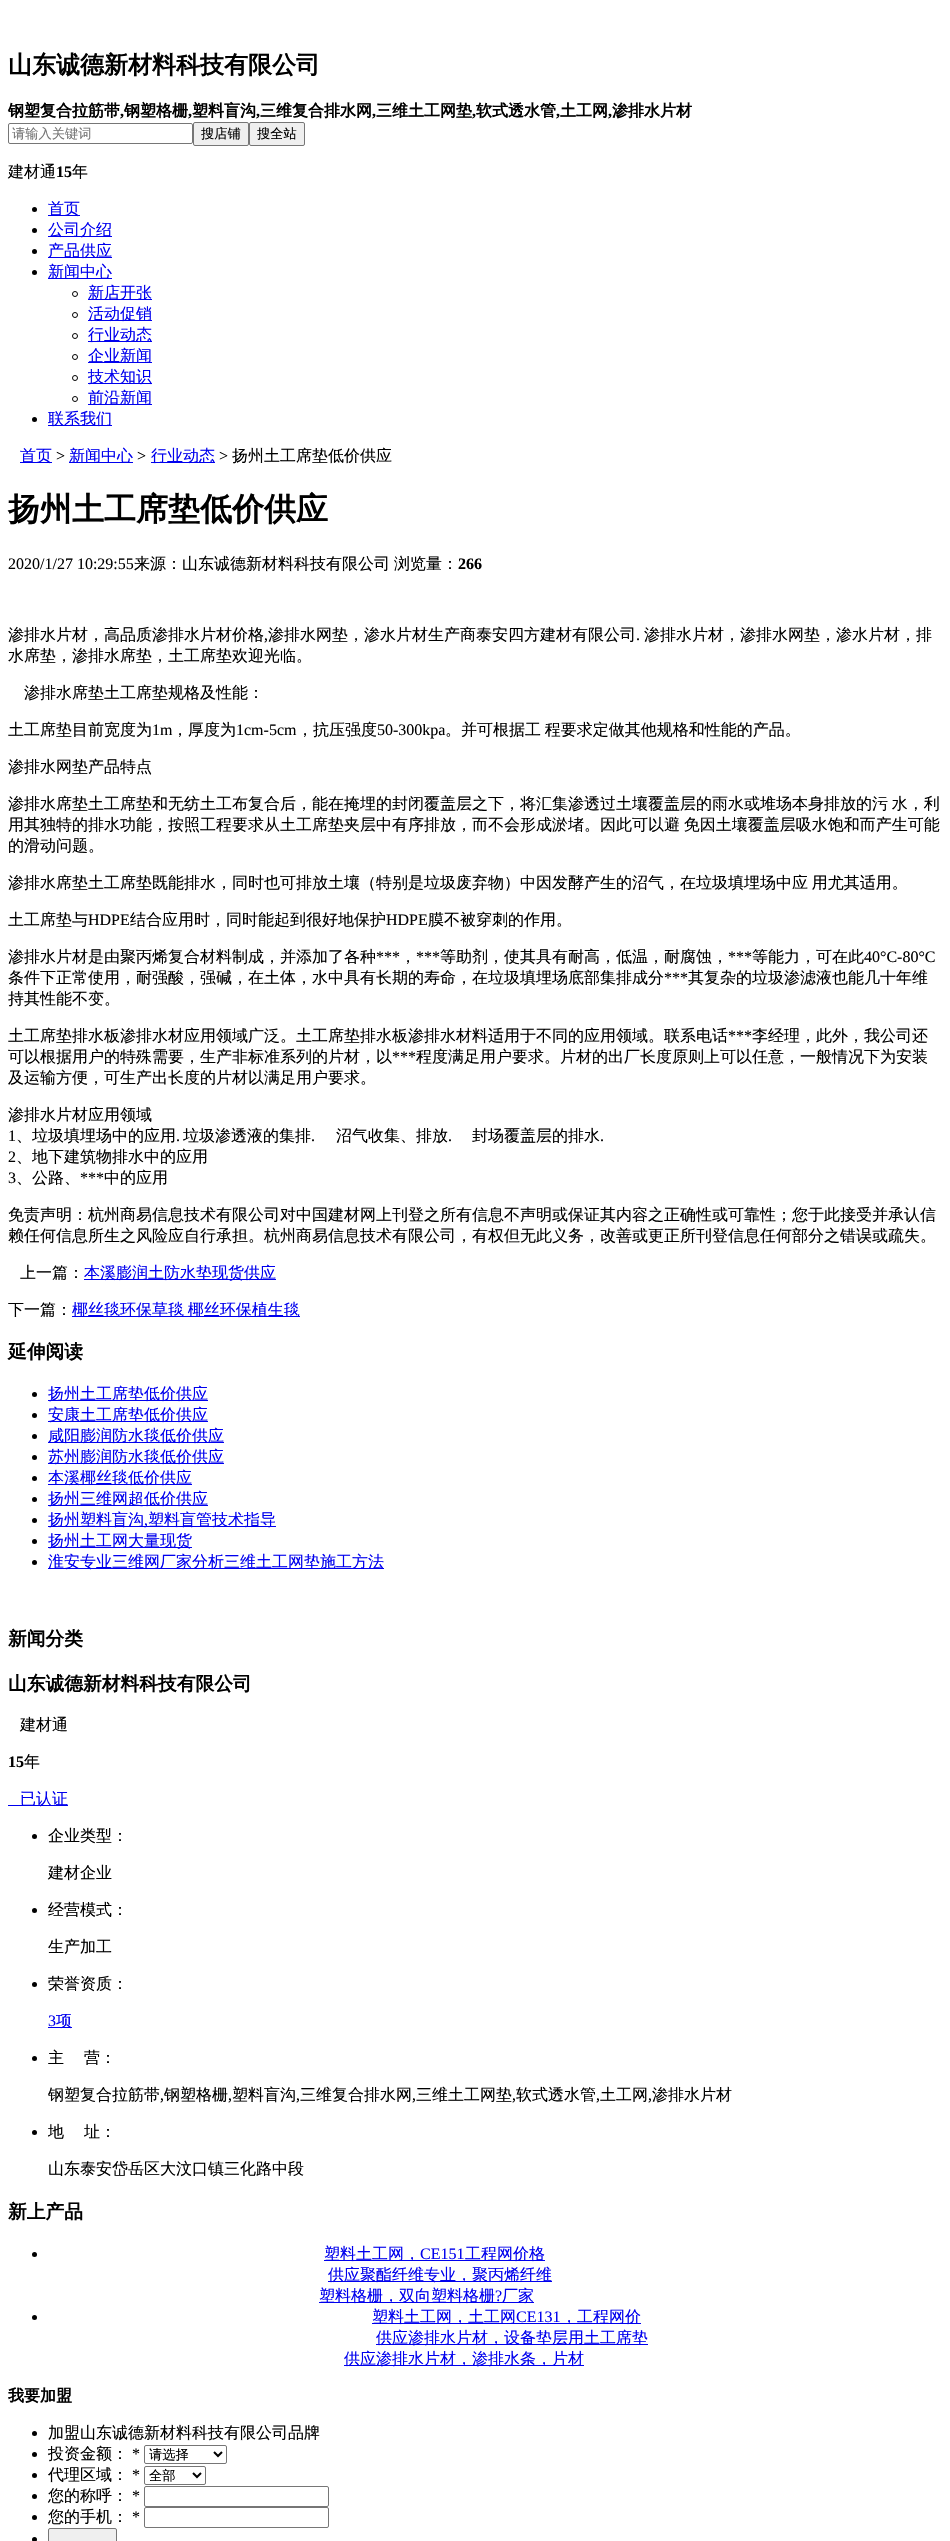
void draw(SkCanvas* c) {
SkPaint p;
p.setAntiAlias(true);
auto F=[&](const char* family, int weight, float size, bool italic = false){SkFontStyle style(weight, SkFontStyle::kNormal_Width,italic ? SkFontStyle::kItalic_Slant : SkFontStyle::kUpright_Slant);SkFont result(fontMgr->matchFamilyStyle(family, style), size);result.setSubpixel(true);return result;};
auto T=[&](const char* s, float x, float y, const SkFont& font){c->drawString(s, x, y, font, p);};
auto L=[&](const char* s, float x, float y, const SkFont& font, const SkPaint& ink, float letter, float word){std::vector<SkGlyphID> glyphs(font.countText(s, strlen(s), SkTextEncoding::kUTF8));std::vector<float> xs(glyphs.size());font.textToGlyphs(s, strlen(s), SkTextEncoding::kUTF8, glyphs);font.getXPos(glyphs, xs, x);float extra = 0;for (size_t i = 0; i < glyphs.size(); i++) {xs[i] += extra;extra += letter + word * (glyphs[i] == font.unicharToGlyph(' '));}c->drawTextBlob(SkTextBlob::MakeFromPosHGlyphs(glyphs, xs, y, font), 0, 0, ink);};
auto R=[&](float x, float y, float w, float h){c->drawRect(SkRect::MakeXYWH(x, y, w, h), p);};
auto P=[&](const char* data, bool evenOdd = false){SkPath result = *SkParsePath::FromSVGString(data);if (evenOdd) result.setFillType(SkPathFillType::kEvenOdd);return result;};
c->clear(0xffffffff);
auto f1 = F("WenQuanYi Zen Hei",700,24);
p.setColor(0xff000000);
T("山东诚德新材料科技有限公司",8,73,f1);
auto f2 = F("WenQuanYi Zen Hei",700,16);
T("钢塑复合拉筋带",8,116,f2);
auto f3 = F("Liberation Serif",700,16);
T(",",120,116,f3);
T("钢塑格栅",124,116,f2);
T(",",188,116,f3);
T("塑料盲沟",192,116,f2);
T(",",256,116,f3);
T("三维复合排水网",260,116,f2);
T(",",372,116,f3);
T("三维土工网垫",376,116,f2);
T(",",472,116,f3);
T("软式透水管",476,116,f2);
T(",",556,116,f3);
T("土工网",560,116,f2);
T(",",608,116,f3);
T("渗排水片材",612,116,f2);
p.setStroke(true);
p.setStrokeWidth(1);
p.setColor(0xff767676);
c->drawRoundRect(SkRect::MakeXYWH(8.5,123.5,184,20),1.5,1.5,p);
auto f4 = F("WenQuanYi Zen Hei",500,13.25);
p.setStroke(false);
p.setColor(0xff757575);
T("请输入关键词",12,138,f4);
p.setColor(0xffefefef);
c->drawRoundRect(SkRect::MakeXYWH(193.5,122.5,55,23),1.5,1.5,p);
p.setStroke(true);
p.setColor(0xff767676);
c->drawRoundRect(SkRect::MakeXYWH(193.5,122.5,55,23),1.5,1.5,p);
p.setStroke(false);
p.setColor(0xff000000);
T("搜店铺",201,138,f4);
p.setColor(0xffefefef);
c->drawRoundRect(SkRect::MakeXYWH(249.5,122.5,55,23),1.5,1.5,p);
p.setStroke(true);
p.setColor(0xff767676);
c->drawRoundRect(SkRect::MakeXYWH(249.5,122.5,55,23),1.5,1.5,p);
p.setStroke(false);
p.setColor(0xff000000);
T("搜全站",257,138,f4);
auto f5 = F("WenQuanYi Zen Hei",500,16);
T("建材通",8,177,f5);
T("15",56,177,f3);
T("年",72,177,f5);
c->drawCircle(34.5,209.5,2.5,p);
p.setColor(0xff0000ee);
R(48,215,32,1);
T("首页",48,214,f5);
p.setColor(0xff000000);
c->drawCircle(34.5,230.5,2.5,p);
p.setColor(0xff0000ee);
R(48,236,64,1);
T("公司介绍",48,235,f5);
p.setColor(0xff000000);
c->drawCircle(34.5,251.5,2.5,p);
p.setColor(0xff0000ee);
R(48,257,64,1);
T("产品供应",48,256,f5);
p.setColor(0xff000000);
c->drawCircle(34.5,272.5,2.5,p);
p.setColor(0xff0000ee);
R(48,278,64,1);
T("新闻中心",48,277,f5);
p.setStroke(true);
p.setColor(0xff000000);
c->drawCircle(75,294,2.5,p);
p.setStroke(false);
p.setColor(0xff0000ee);
R(88,299,64,1);
T("新店开张",88,298,f5);
p.setStroke(true);
p.setColor(0xff000000);
c->drawCircle(75,315,2.5,p);
p.setStroke(false);
p.setColor(0xff0000ee);
R(88,320,64,1);
T("活动促销",88,319,f5);
p.setStroke(true);
p.setColor(0xff000000);
c->drawCircle(75,336,2.5,p);
p.setStroke(false);
p.setColor(0xff0000ee);
R(88,341,64,1);
T("行业动态",88,340,f5);
p.setStroke(true);
p.setColor(0xff000000);
c->drawCircle(75,357,2.5,p);
p.setStroke(false);
p.setColor(0xff0000ee);
R(88,362,64,1);
T("企业新闻",88,361,f5);
p.setStroke(true);
p.setColor(0xff000000);
c->drawCircle(75,378,2.5,p);
p.setStroke(false);
p.setColor(0xff0000ee);
R(88,383,64,1);
T("技术知识",88,382,f5);
p.setStroke(true);
p.setColor(0xff000000);
c->drawCircle(75,399,2.5,p);
p.setStroke(false);
p.setColor(0xff0000ee);
R(88,404,64,1);
T("前沿新闻",88,403,f5);
p.setColor(0xff000000);
c->drawCircle(34.5,419.5,2.5,p);
p.setColor(0xff0000ee);
R(48,425,64,1);
T("联系我们",48,424,f5);
R(20,462,32,1);
T("首页",20,461,f5);
auto f6 = F("Liberation Serif",400,16);
p.setColor(0xff000000);
T(">",56,461,f6);
p.setColor(0xff0000ee);
R(69,462,64,1);
T("新闻中心",69,461,f5);
p.setColor(0xff000000);
T(">",137,461,f6);
p.setColor(0xff0000ee);
R(151,462,64,1);
T("行业动态",151,461,f5);
p.setColor(0xff000000);
T(">",219,461,f6);
T("扬州土工席垫低价供应",232,461,f5);
auto f7 = F("WenQuanYi Zen Hei",700,32);
T("扬州土工席垫低价供应",8,520,f7);
T("2020/1/27 10:29:55",8,569,f6);
T("来源：山东诚德新材料科技有限公司",134,569,f5);
T("浏览量：",394,569,f5);
T("266",458,569,f3);
T("渗排水片材，高品质渗排水片材价格",8,640,f5);
T(",",264,640,f6);
T("渗排水网垫，渗水片材生产商泰安四方建材有限公司",268,640,f5);
T(".",636,640,f6);
T("渗排水片材，渗排水网垫，渗水片材，排",644,640,f5);
T("水席垫，渗排水席垫，土工席垫欢迎光临。",8,661,f5);
T("渗排水席垫土工席垫规格及性能：",24,698,f5);
T("土工席垫目前宽度为",8,735,f5);
T("1m",152,735,f6);
T("，厚度为",172,735,f5);
T("1cm-5cm",236,735,f6);
T("，抗压强度",297,735,f5);
T("50-300kpa",377,735,f6);
L("。并可根据工 程要求定做其他规格和性能的产品。",445,735,f5,p,0,-1);
T("渗排水网垫产品特点",8,772,f5);
L("渗排水席垫土工席垫和无纺土工布复合后，能在掩埋的封闭覆盖层之下，将汇集渗透过土壤覆盖层的雨水或堆场本身排放的污 水，利",8,809,f5,p,0,-1);
L("用其独特的排水功能，按照工程要求从土工席垫夹层中有序排放，而不会形成淤堵。因此可以避 免因土壤覆盖层吸水饱和而产生可能",8,830,f5,p,0,-1);
T("的滑动问题。",8,851,f5);
L("渗排水席垫土工席垫既能排水，同时也可排放土壤（特别是垃圾废弃物）中因发酵产生的沼气，在垃圾填埋场中应 用尤其适用。",8,888,f5,p,0,-1);
T("土工席垫与",8,925,f5);
T("HDPE",88,925,f6);
T("结合应用时，同时能起到很好地保护",130,925,f5);
T("HDPE",386,925,f6);
T("膜不被穿刺的作用。",428,925,f5);
T("渗排水片材是由聚丙烯复合材料制成，并添加了各种",8,962,f5);
T("***",376,962,f6);
T("，",400,962,f5);
T("***",416,962,f6);
T("等助剂，使其具有耐高，低温，耐腐蚀，",440,962,f5);
T("***",728,962,f6);
T("等能力，可在此",752,962,f5);
T("40°C-80°C",864,962,f6);
T("条件下正常使用，耐强酸，强碱，在土体，水中具有长期的寿命，在垃圾填埋场底部集排成分",8,983,f5);
T("***",664,983,f6);
T("其复杂的垃圾渗滤液也能几十年维",688,983,f5);
T("持其性能不变。",8,1004,f5);
T("土工席垫排水板渗排水材应用领域广泛。土工席垫排水板渗排水材料适用于不同的应用领域。联系电话",8,1041,f5);
T("***",728,1041,f6);
T("李经理，此外，我公司还",752,1041,f5);
T("可以根据用户的特殊需要，生产非标准系列的片材，以",8,1062,f5);
T("***",392,1062,f6);
T("程度满足用户要求。片材的出厂长度原则上可以任意，一般情况下为安装",416,1062,f5);
T("及运输方便，可生产出长度的片材以满足用户要求。",8,1083,f5);
T("渗排水片材应用领域",8,1120,f5);
T("1",8,1141,f6);
T("、垃圾填埋场中的应用",16,1141,f5);
T(".",176,1141,f6);
T("垃圾渗透液的集排",183,1141,f5);
T(".",311,1141,f6);
T("沼气收集、排放",336,1141,f5);
T(".",448,1141,f6);
T("封场覆盖层的排水",472,1141,f5);
T(".",600,1141,f6);
T("2",8,1162,f6);
T("、地下建筑物排水中的应用",16,1162,f5);
T("3",8,1183,f6);
T("、公路、",16,1183,f5);
T("***",80,1183,f6);
T("中的应用",104,1183,f5);
T("免责声明：杭州商易信息技术有限公司对中国建材网上刊登之所有信息不声明或保证其内容之正确性或可靠性；您于此接受并承认信",8,1220,f5);
T("赖任何信息所生之风险应自行承担。杭州商易信息技术有限公司，有权但无此义务，改善或更正所刊登信息任何部分之错误或疏失。",8,1241,f5);
T("上一篇：",20,1278,f5);
p.setColor(0xff0000ee);
R(84,1279,192,1);
T("本溪膨润土防水垫现货供应",84,1278,f5);
p.setColor(0xff000000);
T("下一篇：",8,1315,f5);
p.setColor(0xff0000ee);
R(72,1316,228,1);
L("椰丝毯环保草毯 椰丝环保植生毯",72,1315,f5,p,0,-1);
auto f8 = F("WenQuanYi Zen Hei",700,18.75);
p.setColor(0xff000000);
T("延伸阅读",8,1358,f8);
c->drawCircle(34.5,1394.5,2.5,p);
p.setColor(0xff0000ee);
R(48,1400,160,1);
T("扬州土工席垫低价供应",48,1399,f5);
p.setColor(0xff000000);
c->drawCircle(34.5,1415.5,2.5,p);
p.setColor(0xff0000ee);
R(48,1421,160,1);
T("安康土工席垫低价供应",48,1420,f5);
p.setColor(0xff000000);
c->drawCircle(34.5,1436.5,2.5,p);
p.setColor(0xff0000ee);
R(48,1442,176,1);
T("咸阳膨润防水毯低价供应",48,1441,f5);
p.setColor(0xff000000);
c->drawCircle(34.5,1457.5,2.5,p);
p.setColor(0xff0000ee);
R(48,1463,176,1);
T("苏州膨润防水毯低价供应",48,1462,f5);
p.setColor(0xff000000);
c->drawCircle(34.5,1478.5,2.5,p);
p.setColor(0xff0000ee);
R(48,1484,144,1);
T("本溪椰丝毯低价供应",48,1483,f5);
p.setColor(0xff000000);
c->drawCircle(34.5,1499.5,2.5,p);
p.setColor(0xff0000ee);
R(48,1505,160,1);
T("扬州三维网超低价供应",48,1504,f5);
p.setColor(0xff000000);
c->drawCircle(34.5,1520.5,2.5,p);
p.setColor(0xff0000ee);
R(48,1526,228,1);
T("扬州塑料盲沟",48,1525,f5);
T("塑料盲管技术指导",148,1525,f5);
T(",",144,1525,f6);
p.setColor(0xff000000);
c->drawCircle(34.5,1541.5,2.5,p);
p.setColor(0xff0000ee);
R(48,1547,144,1);
T("扬州土工网大量现货",48,1546,f5);
p.setColor(0xff000000);
c->drawCircle(34.5,1562.5,2.5,p);
p.setColor(0xff0000ee);
R(48,1568,336,1);
T("淮安专业三维网厂家分析三维土工网垫施工方法",48,1567,f5);
p.setColor(0xff000000);
T("新闻分类",8,1645,f8);
T("山东诚德新材料科技有限公司",8,1690,f8);
T("建材通",20,1730,f5);
T("15",8,1767,f3);
T("年",24,1767,f5);
p.setColor(0xff0000ee);
R(8,1805,60,1);
T("已认证",20,1804,f5);
p.setColor(0xff000000);
c->drawCircle(34.5,1836.5,2.5,p);
T("企业类型：",48,1841,f5);
T("建材企业",48,1878,f5);
c->drawCircle(34.5,1910.5,2.5,p);
T("经营模式：",48,1915,f5);
T("生产加工",48,1952,f5);
c->drawCircle(34.5,1984.5,2.5,p);
T("荣誉资质：",48,1989,f5);
p.setColor(0xff0000ee);
T("3",48,2026,f6);
R(48,2027,24,1);
T("项",56,2026,f5);
p.setColor(0xff000000);
c->drawCircle(34.5,2058.5,2.5,p);
T("主",48,2063,f5);
T("营：",84,2063,f5);
T("钢塑复合拉筋带",48,2100,f5);
T(",",160,2100,f6);
T("钢塑格栅",164,2100,f5);
T(",",228,2100,f6);
T("塑料盲沟",232,2100,f5);
T(",",296,2100,f6);
T("三维复合排水网",300,2100,f5);
T(",",412,2100,f6);
T("三维土工网垫",416,2100,f5);
T(",",512,2100,f6);
T("软式透水管",516,2100,f5);
T(",",596,2100,f6);
T("土工网",600,2100,f5);
T(",",648,2100,f6);
T("渗排水片材",652,2100,f5);
c->drawCircle(34.5,2132.5,2.5,p);
T("地",48,2137,f5);
T("址：",84,2137,f5);
T("山东泰安岱岳区大汶口镇三化路中段",48,2174,f5);
T("新上产品",8,2218,f8);
c->drawCircle(34.5,2254.5,2.5,p);
p.setColor(0xff0000ee);
R(324,2260,221,1);
T("塑料土工网，",324,2259,f5);
T("CE151",420,2259,f6);
T("工程网价格",465,2259,f5);
R(328,2281,224,1);
T("供应聚酯纤维专业，聚丙烯纤维",328,2280,f5);
R(319,2302,215,1);
T("塑料格栅，双向塑料格栅",319,2301,f5);
T("?",495,2301,f6);
T("厂家",502,2301,f5);
p.setColor(0xff000000);
c->drawCircle(34.5,2317.5,2.5,p);
p.setColor(0xff0000ee);
R(372,2323,269,1);
T("塑料土工网，土工网",372,2322,f5);
T("CE131",516,2322,f6);
T("，工程网价",561,2322,f5);
R(376,2344,272,1);
T("供应渗排水片材，设备垫层用土工席垫",376,2343,f5);
R(344,2365,240,1);
T("供应渗排水片材，渗排水条，片材",344,2364,f5);
p.setColor(0xff000000);
T("我要加盟",8,2401,f2);
c->drawCircle(34.5,2433.5,2.5,p);
T("加盟山东诚德新材料科技有限公司品牌",48,2438,f5);
c->drawCircle(34.5,2454.5,2.5,p);
T("投资金额：",48,2459,f5);
T("*",132,2459,f6);
p.setStroke(true);
p.setColor(0xff767676);
c->drawRoundRect(SkRect::MakeXYWH(144.5,2445.5,82,18),1.5,1.5,p);
p.setStrokeWidth(2);
p.setColor(0xff000000);
c->drawPath(P("M214 2452l4 4l4-4"),p);
p.setStroke(false);
T("请选择",149,2459,f4);
c->drawCircle(34.5,2475.5,2.5,p);
T("代理区域：",48,2480,f5);
T("*",132,2480,f6);
p.setStroke(true);
p.setStrokeWidth(1);
p.setColor(0xff767676);
c->drawRoundRect(SkRect::MakeXYWH(144.5,2466.5,61,18),1.5,1.5,p);
p.setStrokeWidth(2);
p.setColor(0xff000000);
c->drawPath(P("M193 2473l4 4l4-4"),p);
p.setStroke(false);
T("全部",149,2480,f4);
c->drawCircle(34.5,2496.5,2.5,p);
T("您的称呼：",48,2501,f5);
T("*",132,2501,f6);
p.setStroke(true);
p.setStrokeWidth(1);
p.setColor(0xff767676);
c->drawRoundRect(SkRect::MakeXYWH(144.5,2486.5,184,20),1.5,1.5,p);
p.setStroke(false);
p.setColor(0xff000000);
c->drawCircle(34.5,2517.5,2.5,p);
T("您的手机：",48,2522,f5);
T("*",132,2522,f6);
p.setStroke(true);
p.setColor(0xff767676);
c->drawRoundRect(SkRect::MakeXYWH(144.5,2507.5,184,20),1.5,1.5,p);
p.setStroke(false);
p.setColor(0xff000000);
c->drawCircle(34.5,2539.5,2.5,p);
p.setColor(0xffefefef);
c->drawRoundRect(SkRect::MakeXYWH(48.5,2528.5,68,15),1.5,1.5,p);
p.setStroke(true);
p.setColor(0xff767676);
c->drawRoundRect(SkRect::MakeXYWH(48.5,2528.5,68,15),1.5,1.5,p);
}
